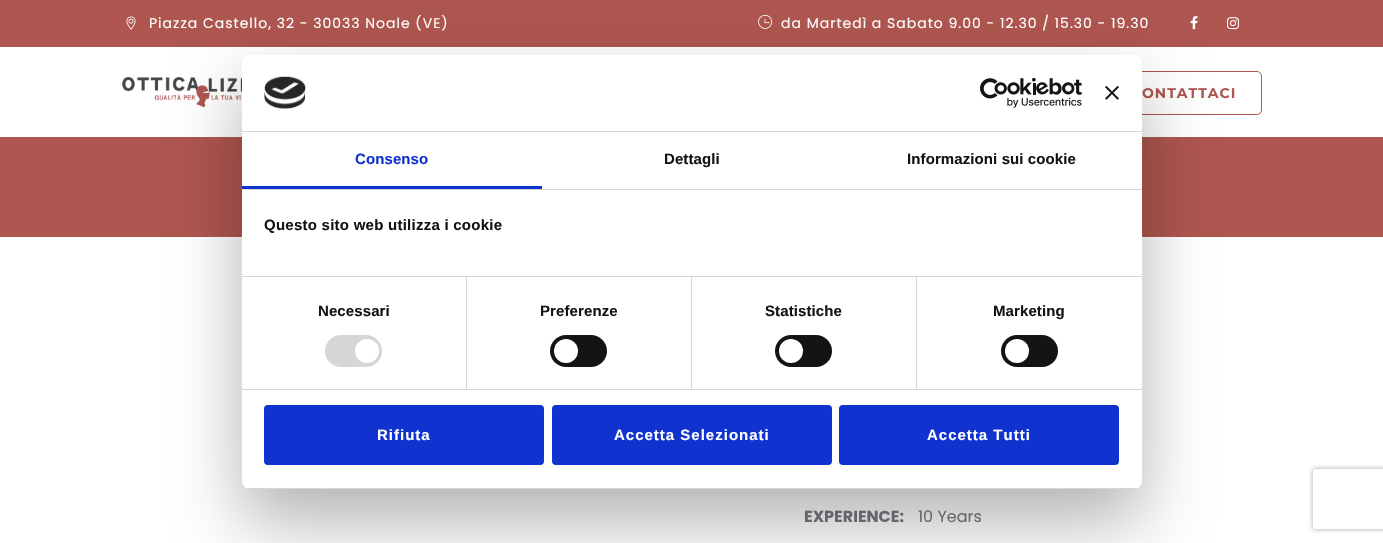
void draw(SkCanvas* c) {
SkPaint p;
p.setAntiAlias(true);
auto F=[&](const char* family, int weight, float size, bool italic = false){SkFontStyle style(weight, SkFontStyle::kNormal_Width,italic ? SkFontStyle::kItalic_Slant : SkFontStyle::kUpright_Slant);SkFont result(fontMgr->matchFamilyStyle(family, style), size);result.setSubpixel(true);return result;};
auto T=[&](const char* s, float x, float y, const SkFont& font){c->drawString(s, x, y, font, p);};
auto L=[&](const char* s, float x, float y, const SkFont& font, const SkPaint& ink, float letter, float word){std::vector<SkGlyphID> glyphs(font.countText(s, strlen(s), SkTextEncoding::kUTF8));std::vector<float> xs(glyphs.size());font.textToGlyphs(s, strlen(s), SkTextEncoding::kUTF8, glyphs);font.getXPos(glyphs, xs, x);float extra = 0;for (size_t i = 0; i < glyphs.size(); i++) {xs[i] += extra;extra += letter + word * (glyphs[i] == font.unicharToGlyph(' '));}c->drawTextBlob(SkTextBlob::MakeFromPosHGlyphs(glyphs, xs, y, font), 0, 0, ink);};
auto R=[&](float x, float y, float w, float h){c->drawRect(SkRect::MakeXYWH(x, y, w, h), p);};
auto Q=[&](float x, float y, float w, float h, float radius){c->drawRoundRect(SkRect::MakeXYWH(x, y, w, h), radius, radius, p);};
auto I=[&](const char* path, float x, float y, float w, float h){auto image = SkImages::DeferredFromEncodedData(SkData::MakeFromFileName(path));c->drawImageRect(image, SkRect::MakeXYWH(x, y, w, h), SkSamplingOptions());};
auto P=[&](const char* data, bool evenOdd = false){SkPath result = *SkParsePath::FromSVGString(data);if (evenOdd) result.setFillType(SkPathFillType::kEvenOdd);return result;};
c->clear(0xffffffff);
p.setColor(0xffae564f);
R(0,0,1383,47);
I("1.png",126,16,10,14);
auto f1 = F("Poppins",400,14);
p.setColor(0xffffffff);
L("Piazza Castello, 32 - 30033 Noale (VE)",149,28,f1,p,1,0);
I("2.png",758,14,15,15);
L("da Martedì a Sabato 9.00 - 12.30 / 15.30 - 19.30",781,28,f1,p,1,0);
I("3.png",1190,16,8,14);
I("4.png",1227,17,12,13);
I("5.png",122,77,120,30);
p.setStroke(true);
p.setStrokeWidth(1);
p.setColor(0xffae564f);
c->drawRoundRect(SkRect::MakeXYWH(1106.5,71.5,155,43),4.5,4.5,p);
auto f2 = F("Montserrat",700,14);
p.setStroke(false);
L("ONTATTACI",1142,98,f2,p,1,0);
R(0,137,1383,100);
auto f3 = F("Poppins",700,16);
p.setColor(0xff777a80);
T("EXPERIENCE:",804,522,f3);
auto f4 = F("Poppins",400,16);
T("10 Years",918,522,f4);
p.setColor(0x4d000000);
p.setMaskFilter(SkMaskFilter::MakeBlur(kNormal_SkBlurStyle, 34));
c->drawRoundRect(SkRect::MakeXYWH(242,87,900,434),8,8,p);
p.setMaskFilter(nullptr);
p.setColor(0xffffffff);
Q(242,55,900,434,8);
p.setColor(0xffd6d6d6);
R(242,131,900,1);
I("6.png",264,76,42,33);
I("7.png",980,78,102,30);
I("8.png",1105,86,14,14);
R(242,189,900,1);
p.setColor(0xff1032cf);
R(242,186,300,3);
auto f5 = F("Liberation Sans",700,15);
L("Consenso",355,164,f5,p,.1,0);
p.setColor(0xff141414);
L("Dettagli",664,164,f5,p,.1,0);
L("Informazioni sui cookie",907,164,f5,p,.1,0);
p.setColor(0xffd6d6d6);
R(242,276,900,1);
p.setColor(0xff141414);
L("Questo sito web utilizza i cookie",264,230,f5,p,.25,0);
p.setColor(0xffd6d6d6);
R(242,389,900,1);
R(466,277,1,112);
p.setColor(0xff141414);
L("Necessari",318,316,f5,p,.1,0);
p.setColor(0xffd6d6d6);
Q(325,335,57,32,16);
p.setColor(0xffffffff);
c->drawCircle(367,351,12,p);
p.setColor(0xffd6d6d6);
R(691,277,1,112);
p.setColor(0xff141414);
L("Preferenze",540,316,f5,p,.1,0);
Q(550,335,57,32,16);
p.setColor(0xffffffff);
c->drawCircle(566,351,12,p);
p.setColor(0xffd6d6d6);
R(916,277,1,112);
p.setColor(0xff141414);
L("Statistiche",765,316,f5,p,.1,0);
Q(775,335,57,32,16);
p.setColor(0xffffffff);
c->drawCircle(791,351,12,p);
p.setColor(0xff141414);
L("Marketing",993,316,f5,p,.1,0);
Q(1001,335,57,32,16);
p.setColor(0xffffffff);
c->drawCircle(1017,351,12,p);
c->save();
c->clipPath(P("M250 55h884c4.5 0 8 3.5 8 8v418c0 4.5-3.5 8-8 8h-884c-4.5 0-8-3.5-8-8v-418c0-4.5 3.5-8 8-8z"),true);
p.setColor(0xffd6d6d6);
R(242,488,900,1);
c->restore();
p.setColor(0xff1032cf);
c->drawRoundRect(SkRect::MakeXYWH(265,406,278,58),3,3,p);
p.setStroke(true);
p.setStrokeWidth(2);
c->drawRoundRect(SkRect::MakeXYWH(265,406,278,58),3,3,p);
p.setStroke(false);
p.setColor(0xffffffff);
L("Rifiuta",377,440,f5,p,1,0);
p.setColor(0xff1032cf);
c->drawRoundRect(SkRect::MakeXYWH(553,406,278,58),3,3,p);
p.setStroke(true);
c->drawRoundRect(SkRect::MakeXYWH(553,406,278,58),3,3,p);
p.setStroke(false);
p.setColor(0xffffffff);
L("Accetta Selezionati",614,440,f5,p,1,0);
p.setColor(0xff1032cf);
c->drawRoundRect(SkRect::MakeXYWH(840,406,278,58),3,3,p);
p.setStroke(true);
c->drawRoundRect(SkRect::MakeXYWH(840,406,278,58),3,3,p);
p.setStroke(false);
p.setColor(0xffffffff);
L("Accetta Tutti",927,440,f5,p,1,0);
c->save();
c->clipPath(P("M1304 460h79v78h-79zm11 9h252c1 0 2 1 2 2v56c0 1-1 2-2 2h-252c-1 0-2-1-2-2v-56c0-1 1-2 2-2z",true),true);
p.setColor(0xffa4a4a4);
p.setMaskFilter(SkMaskFilter::MakeBlur(kNormal_SkBlurStyle, 2.5));
c->drawRoundRect(SkRect::MakeXYWH(1313,469,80,60),2,2,p);
p.setMaskFilter(nullptr);
c->restore();
}
